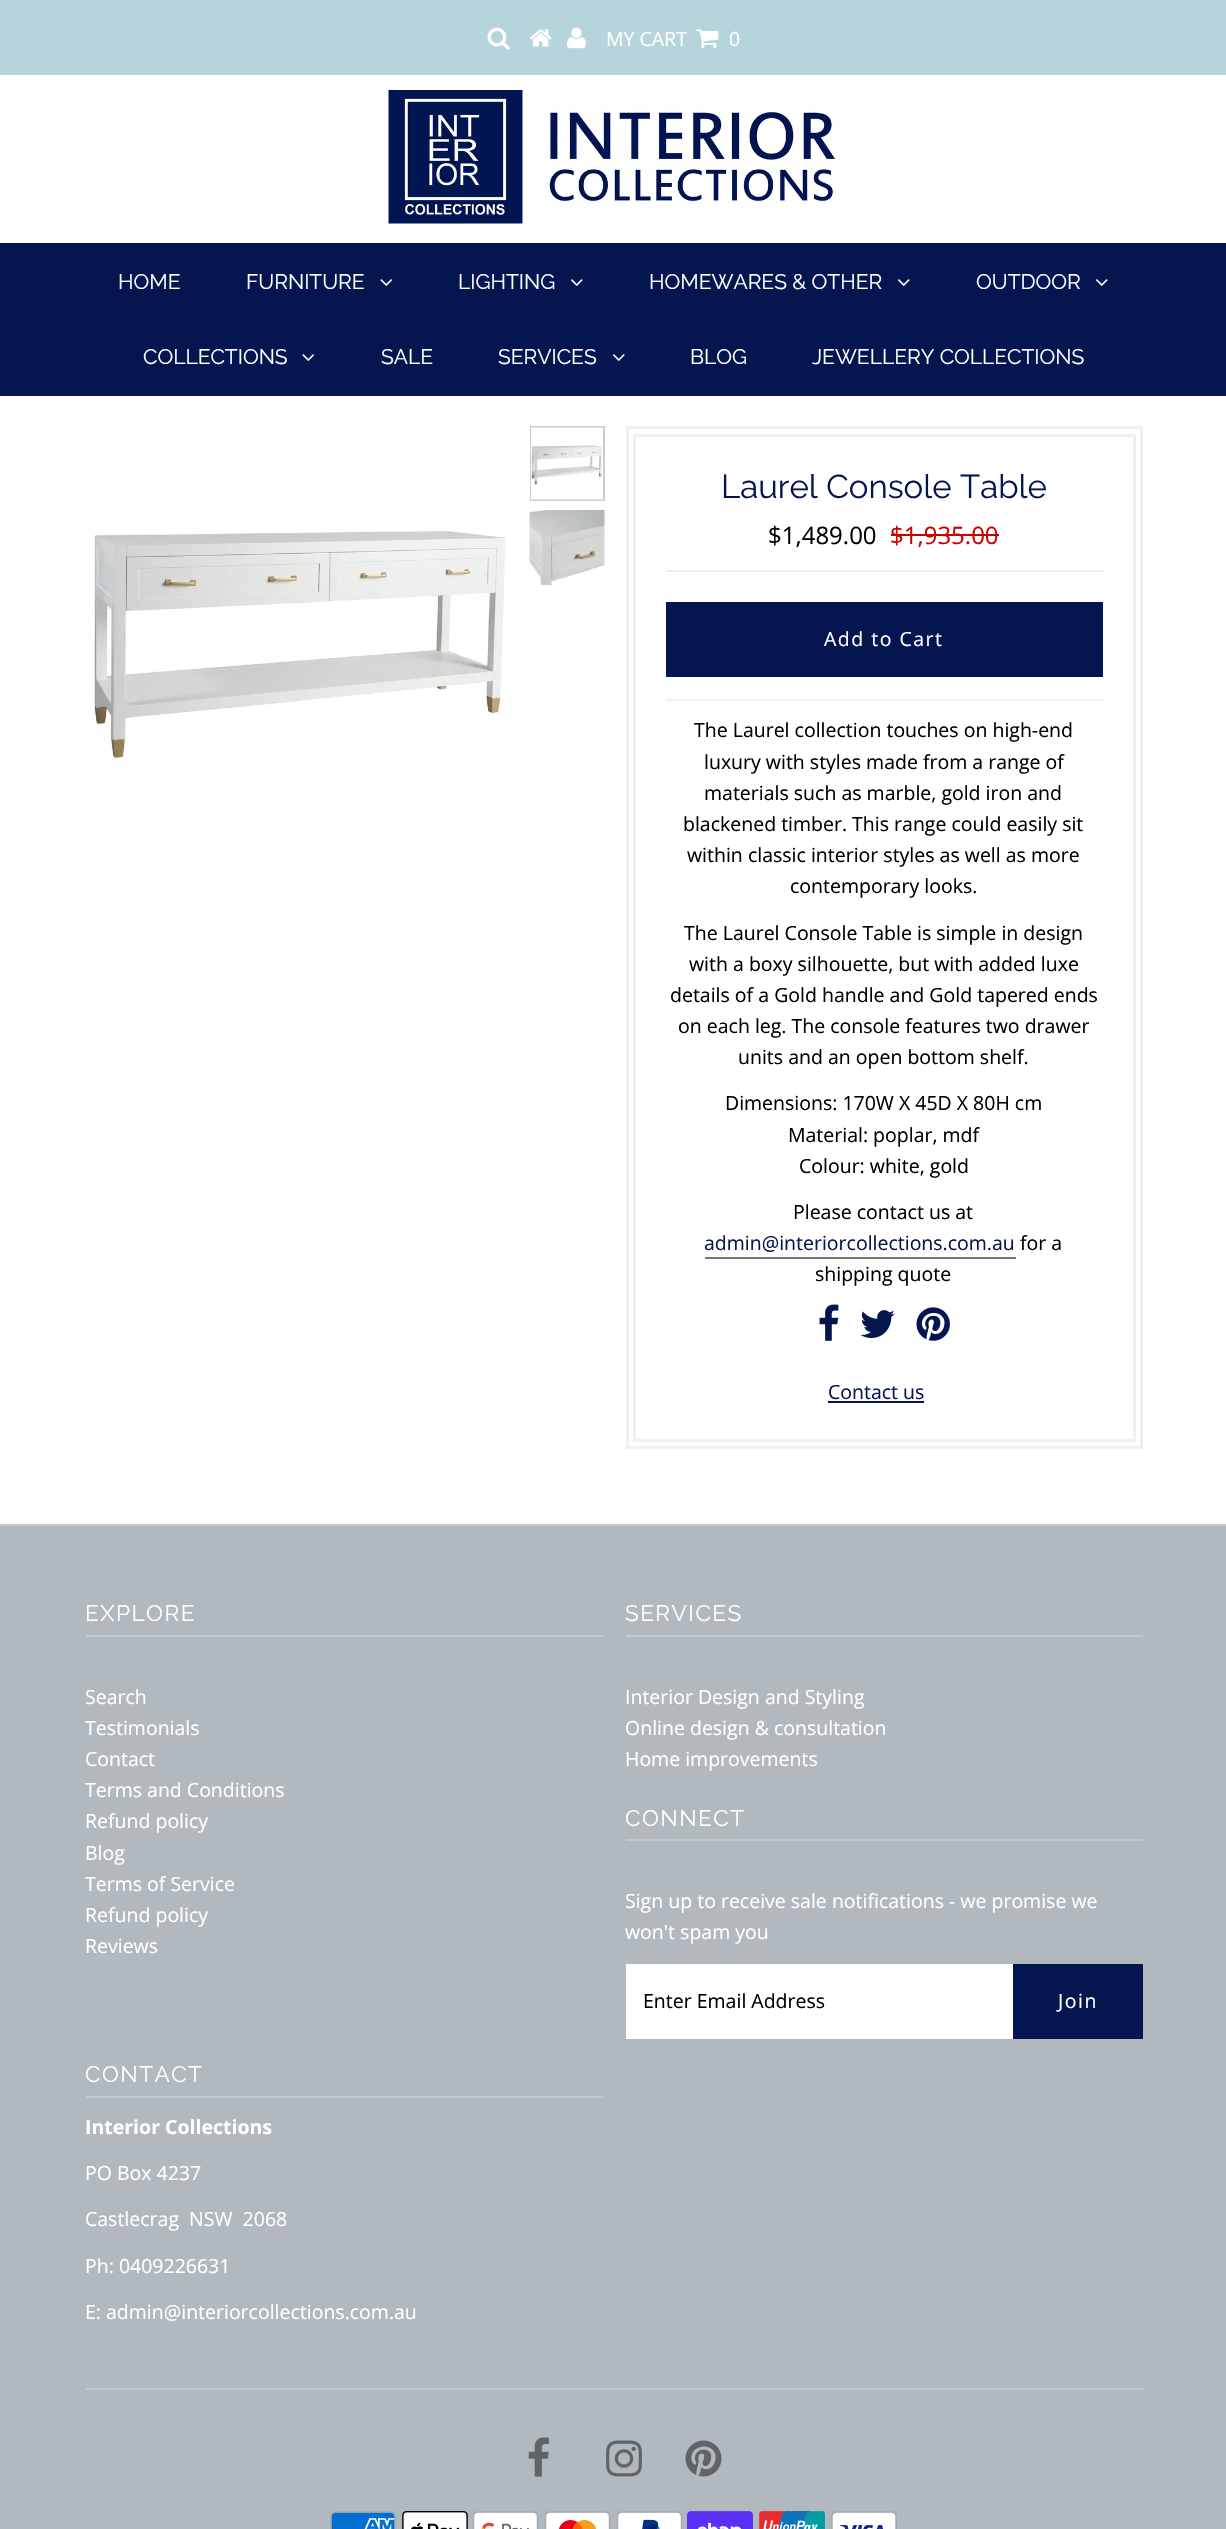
void draw(SkCanvas* c) {
SkPaint p;
p.setAntiAlias(true);
auto F=[&](const char* family, int weight, float size, bool italic = false){SkFontStyle style(weight, SkFontStyle::kNormal_Width,italic ? SkFontStyle::kItalic_Slant : SkFontStyle::kUpright_Slant);SkFont result(fontMgr->matchFamilyStyle(family, style), size);result.setSubpixel(true);return result;};
auto T=[&](const char* s, float x, float y, const SkFont& font){c->drawString(s, x, y, font, p);};
auto L=[&](const char* s, float x, float y, const SkFont& font, const SkPaint& ink, float letter, float word){std::vector<SkGlyphID> glyphs(font.countText(s, strlen(s), SkTextEncoding::kUTF8));std::vector<float> xs(glyphs.size());font.textToGlyphs(s, strlen(s), SkTextEncoding::kUTF8, glyphs);font.getXPos(glyphs, xs, x);float extra = 0;for (size_t i = 0; i < glyphs.size(); i++) {xs[i] += extra;extra += letter + word * (glyphs[i] == font.unicharToGlyph(' '));}c->drawTextBlob(SkTextBlob::MakeFromPosHGlyphs(glyphs, xs, y, font), 0, 0, ink);};
auto R=[&](float x, float y, float w, float h){c->drawRect(SkRect::MakeXYWH(x, y, w, h), p);};
auto I=[&](const char* path, float x, float y, float w, float h){auto image = SkImages::DeferredFromEncodedData(SkData::MakeFromFileName(path));c->drawImageRect(image, SkRect::MakeXYWH(x, y, w, h), SkSamplingOptions());};
c->clear(0xffffffff);
p.setColor(0xffb6d4dc);
R(0,0,1226,75);
I("1.png",487,27,23,23);
I("2.png",530,29,22,18);
I("3.png",567,27,19,22);
auto f1 = F("Open Sans",400,19.5);
p.setColor(0xffffffff);
T("MY CART",606,46,f1);
I("4.png",696,29,23,20);
T("0",729,46,f1);
I("5.png",388,90,449,134);
p.setColor(0xff051550);
R(0,243,1226,153);
auto f2 = F("Raleway",400,21);
p.setColor(0xffffffff);
T("HOME",118,289,f2);
T("FURNITURE",246,289,f2);
I("6.png",380,279,12,7);
T("LIGHTING",458,289,f2);
I("7.png",571,279,12,7);
T("HOMEWARES & OTHER",649,289,f2);
I("7.png",898,279,12,7);
T("OUTDOOR",976,289,f2);
I("7.png",1096,279,12,7);
T("COLLECTIONS",143,364,f2);
I("6.png",302,354,12,7);
T("SALE",381,364,f2);
T("SERVICES",498,364,f2);
I("7.png",613,354,12,7);
T("BLOG",690,364,f2);
T("JEWELLERY COLLECTIONS",812,364,f2);
p.setStroke(true);
p.setStrokeWidth(2);
p.setColor(0xffcccccc);
c->drawRect(SkRect::MakeXYWH(531,427,73,73),p);
I("8.png",531,427,72,73);
I("9.png",529,510,76,75);
I("10.png",94,531,412,227);
p.setStrokeWidth(3);
p.setColor(0xfff0f0f0);
c->drawRect(SkRect::MakeXYWH(627.5,427.5,514,1020),p);
c->drawRect(SkRect::MakeXYWH(634.5,435.5,500,1005),p);
auto f3 = F("Raleway",400,33);
p.setStroke(false);
p.setColor(0xff051550);
T("Laurel Console Table",721,498,f3);
p.setColor(0xfff0f0f0);
R(666,699,437,2);
R(666,570,437,2);
auto f4 = F("Open Sans",400,24);
p.setColor(0xff000000);
T("$1,489.00",768,544,f4);
p.setColor(0xffcc0000);
T("$1,935.00",890,544,f4);
R(891,534,108,2);
p.setColor(0xff051550);
R(666,602,437,75);
p.setColor(0xffffffff);
L("Add to Cart",824,646,f1,p,1.5,0);
p.setColor(0xff000000);
T("The Laurel collection touches on high-end",694,737,f1);
T("luxury with styles made from a range of",704,769,f1);
T("materials such as marble, gold iron and",704,800,f1);
T("blackened timber. This range could easily sit",683,831,f1);
T("within classic interior styles as well as more",687,862,f1);
T("contemporary looks.",790,893,f1);
T("The Laurel Console Table is simple in design",684,940,f1);
T("with a boxy silhouette, but with added luxe",689,971,f1);
T("details of a Gold handle and Gold tapered ends",670,1002,f1);
T("on each leg. The console features two drawer",678,1033,f1);
T("units and an open bottom shelf.",738,1064,f1);
T("Dimensions: 170W X 45D X 80H cm",725,1110,f1);
T("Material: poplar, mdf",788,1142,f1);
T("Colour: white, gold",799,1173,f1);
T("Please contact us at",793,1219,f1);
p.setColor(0xff051550);
T("admin@interiorcollections.com.au",704,1250,f1);
p.setColor(0xff777777);
R(705,1257,311,2);
p.setColor(0xff000000);
T("for a",1020,1250,f1);
T("shipping quote",815,1281,f1);
I("11.png",819,1304,20,37);
I("12.png",860,1310,35,28);
I("13.png",916,1307,34,34);
p.setColor(0xff051550);
T("Contact us",828,1399,f1);
R(828,1401,96,2);
p.setColor(0xffb1b8be);
R(0,1526,1226,1003);
p.setColor(0xffc4c9cc);
R(0,1524,1226,2);
R(86,1635,517,2);
auto f5 = F("Raleway",400,22.5);
p.setColor(0xffffffff);
L("EXPLORE",85,1621,f5,p,1.5,0);
T("Search",85,1704,f1);
T("Testimonials",85,1735,f1);
T("Contact",85,1766,f1);
T("Terms and Conditions",85,1797,f1);
T("Refund policy",85,1828,f1);
T("Blog",85,1860,f1);
T("Terms of Service",85,1891,f1);
T("Refund policy",85,1922,f1);
T("Reviews",85,1953,f1);
p.setColor(0xffc4c9cc);
R(626,1635,517,2);
p.setColor(0xffffffff);
L("SERVICES",625,1621,f5,p,1.5,0);
T("Interior Design and Styling",625,1704,f1);
T("Online design & consultation",625,1735,f1);
T("Home improvements",625,1766,f1);
p.setColor(0xffc4c9cc);
R(626,1839,517,2);
p.setColor(0xffffffff);
L("CONNECT",625,1826,f5,p,1.5,0);
T("Sign up to receive sale notifications - we promise we",625,1908,f1);
T("won't spam you",625,1939,f1);
R(626,1964,387,75);
p.setColor(0xff000000);
T("Enter Email Address",643,2008,f1);
p.setColor(0xff051550);
R(1013,1964,130,75);
p.setColor(0xffffffff);
L("Join",1058,2008,f1,p,1.5,0);
p.setColor(0xffc4c9cc);
R(86,2096,517,2);
p.setColor(0xffffffff);
L("CONTACT",85,2082,f5,p,1.5,0);
auto f6 = F("Open Sans",700,19.5);
T("Interior Collections",85,2134,f6);
T("PO Box 4237",85,2180,f1);
T("Castlecrag  NSW  2068",85,2226,f1);
T("Ph: 0409226631",85,2273,f1);
T("E: admin@interiorcollections.com.au",85,2319,f1);
p.setColor(0xffc4c9cc);
R(86,2388,1057,2);
I("14.png",528,2437,21,40);
I("15.png",606,2440,36,37);
I("16.png",685,2440,37,37);
I("17.png",330,2511,66,18);
I("18.png",402,2511,66,18);
I("19.png",473,2511,66,18);
I("20.png",545,2511,66,18);
I("21.png",617,2511,66,18);
I("22.png",687,2511,66,18);
I("23.png",759,2511,66,18);
I("24.png",831,2511,66,18);
}
